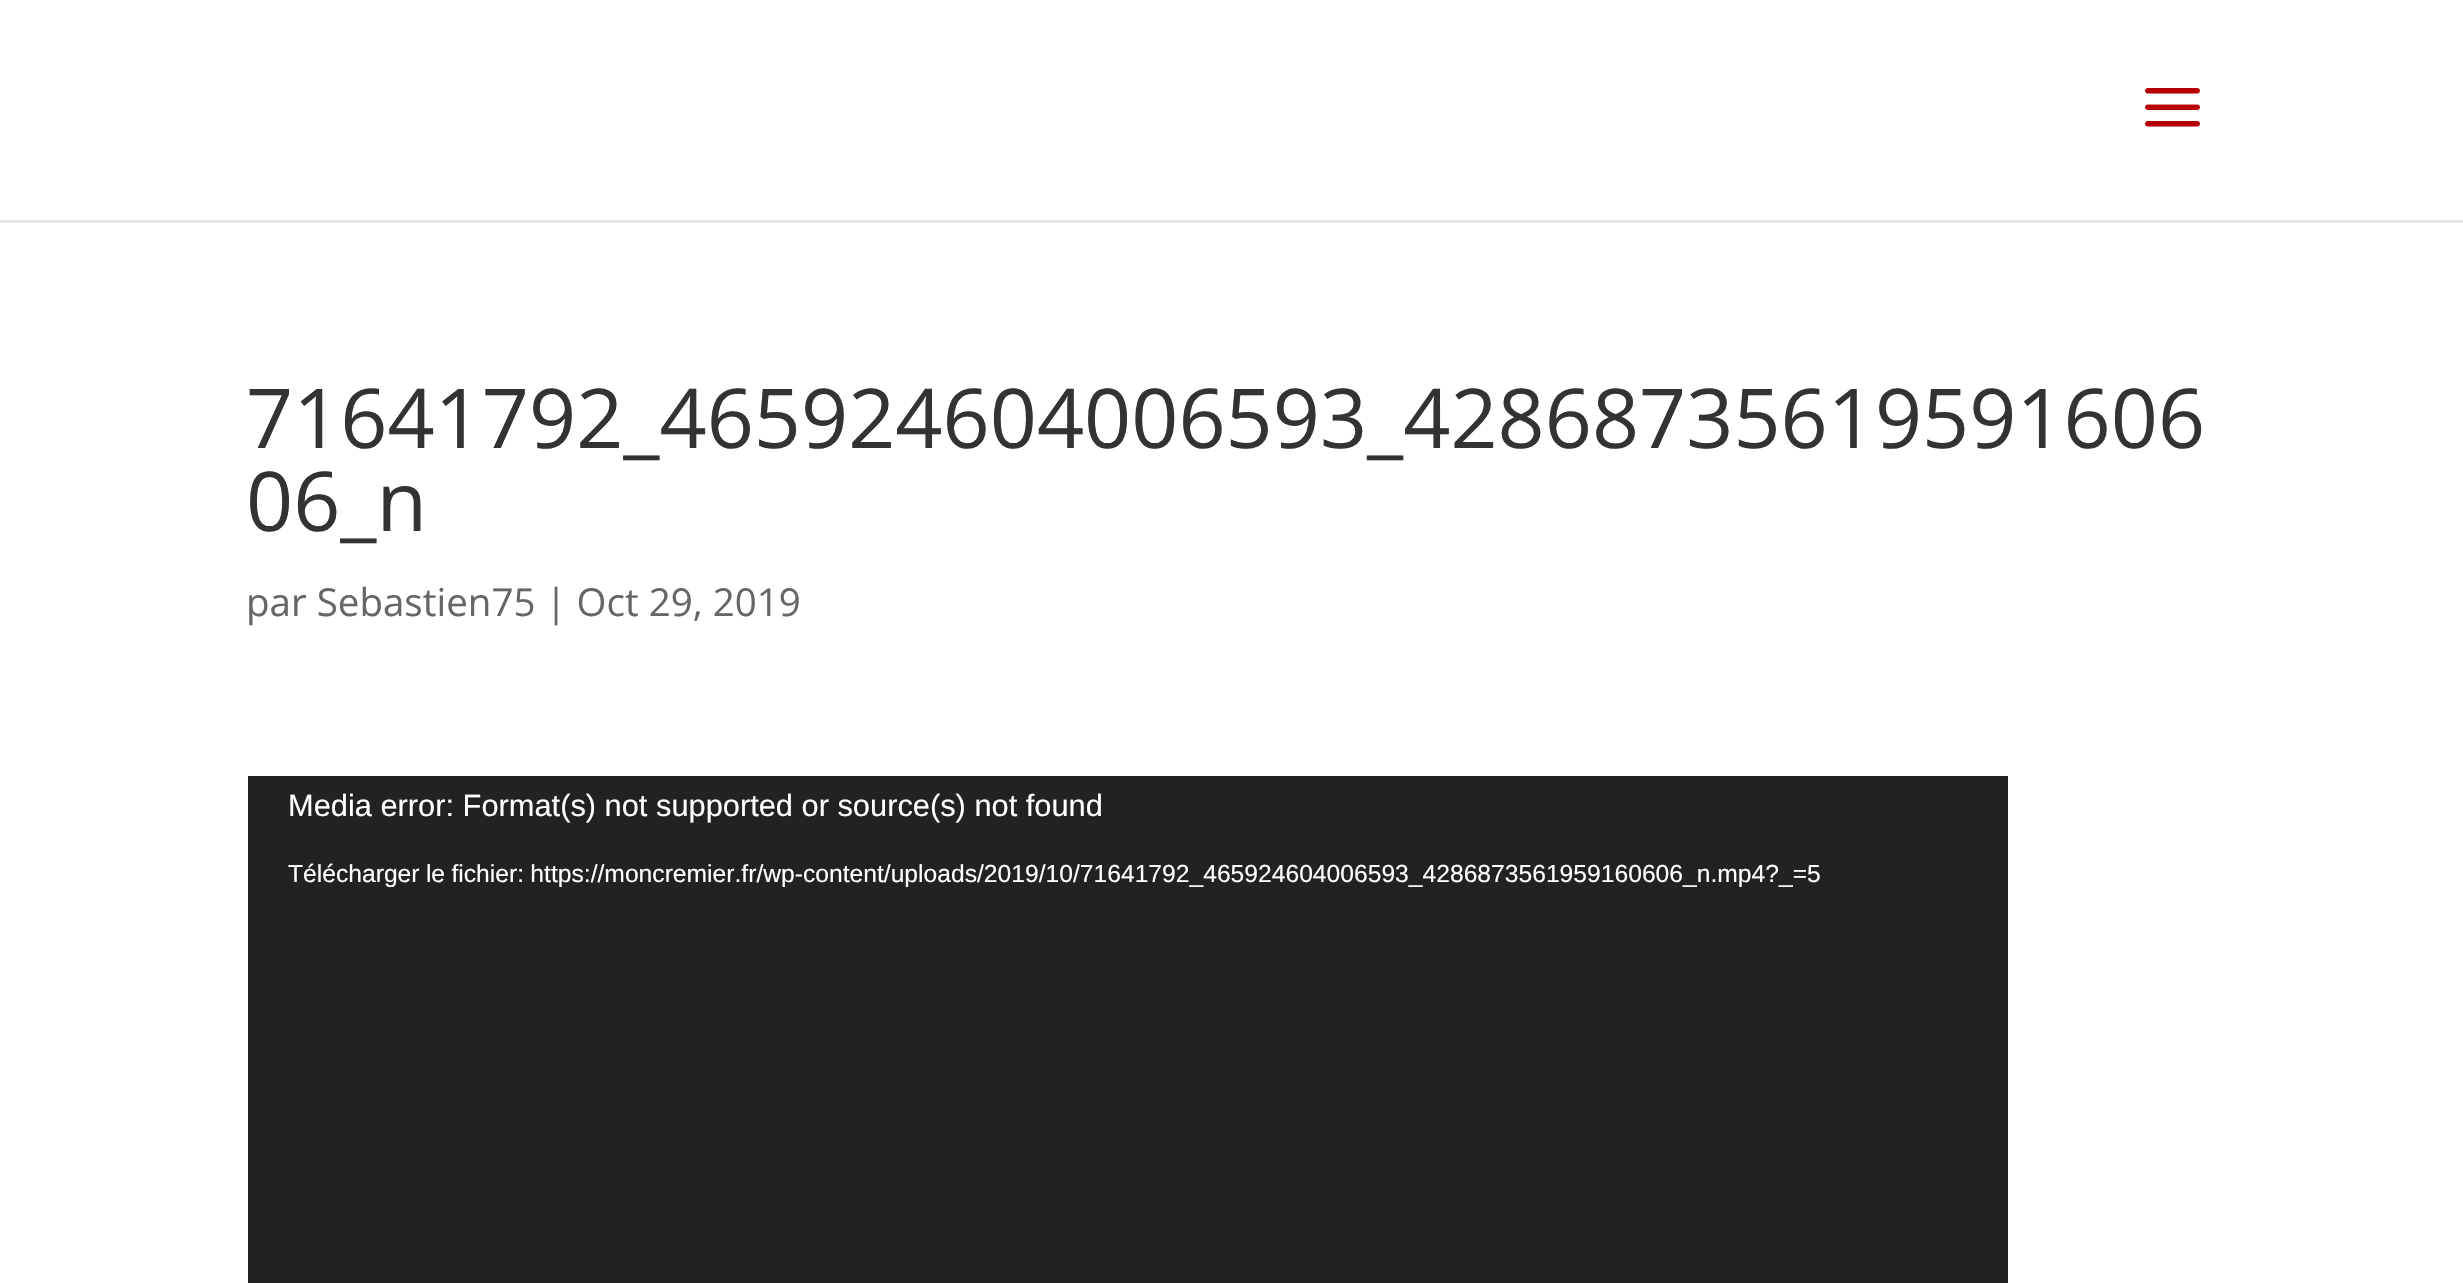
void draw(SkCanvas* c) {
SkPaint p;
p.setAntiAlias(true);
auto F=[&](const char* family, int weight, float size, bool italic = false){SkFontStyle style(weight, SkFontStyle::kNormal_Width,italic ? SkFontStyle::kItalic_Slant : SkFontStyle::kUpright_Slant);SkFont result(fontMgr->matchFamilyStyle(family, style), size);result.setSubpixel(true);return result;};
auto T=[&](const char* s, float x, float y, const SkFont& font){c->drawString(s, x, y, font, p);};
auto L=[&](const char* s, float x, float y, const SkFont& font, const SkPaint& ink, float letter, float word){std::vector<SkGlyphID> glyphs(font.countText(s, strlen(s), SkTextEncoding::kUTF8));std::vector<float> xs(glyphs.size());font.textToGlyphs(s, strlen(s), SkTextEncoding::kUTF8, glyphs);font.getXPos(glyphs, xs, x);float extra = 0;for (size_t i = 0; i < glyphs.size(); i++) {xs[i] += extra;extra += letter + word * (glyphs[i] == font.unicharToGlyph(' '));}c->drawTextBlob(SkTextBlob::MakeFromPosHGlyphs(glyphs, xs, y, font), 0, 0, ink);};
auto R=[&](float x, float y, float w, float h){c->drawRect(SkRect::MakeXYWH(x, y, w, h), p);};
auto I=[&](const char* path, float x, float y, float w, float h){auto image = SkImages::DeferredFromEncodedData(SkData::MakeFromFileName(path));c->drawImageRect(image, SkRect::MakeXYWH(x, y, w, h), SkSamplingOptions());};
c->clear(0xffffffff);
p.setColor(0xffe6e6e6);
R(0,220,2463,3);
I("1.png",2145,88,55,39);
auto f1 = F("Open Sans",400,82.5);
p.setColor(0xff333333);
T("71641792_465924604006593_42868735619591606",246,448,f1);
T("06_n",246,531,f1);
auto f2 = F("Open Sans",400,38.5);
p.setColor(0xff666666);
T("par Sebastien75 | Oct 29, 2019",246,616,f2);
p.setColor(0xff222222);
R(248,776,1760,507);
auto f3 = F("Liberation Sans",400,30.8);
p.setColor(0xffffffff);
T("Media error: Format(s) not supported or source(s) not found",288,816,f3);
auto f4 = F("Liberation Sans",400,24.65);
L("Télécharger le fichier: https://moncremier.fr/wp-content/uploads/2019/10/71641792_465924604006593_4286873561959160606_n.mp4?_=5",288,882,f4,p,0,-.5);
}
